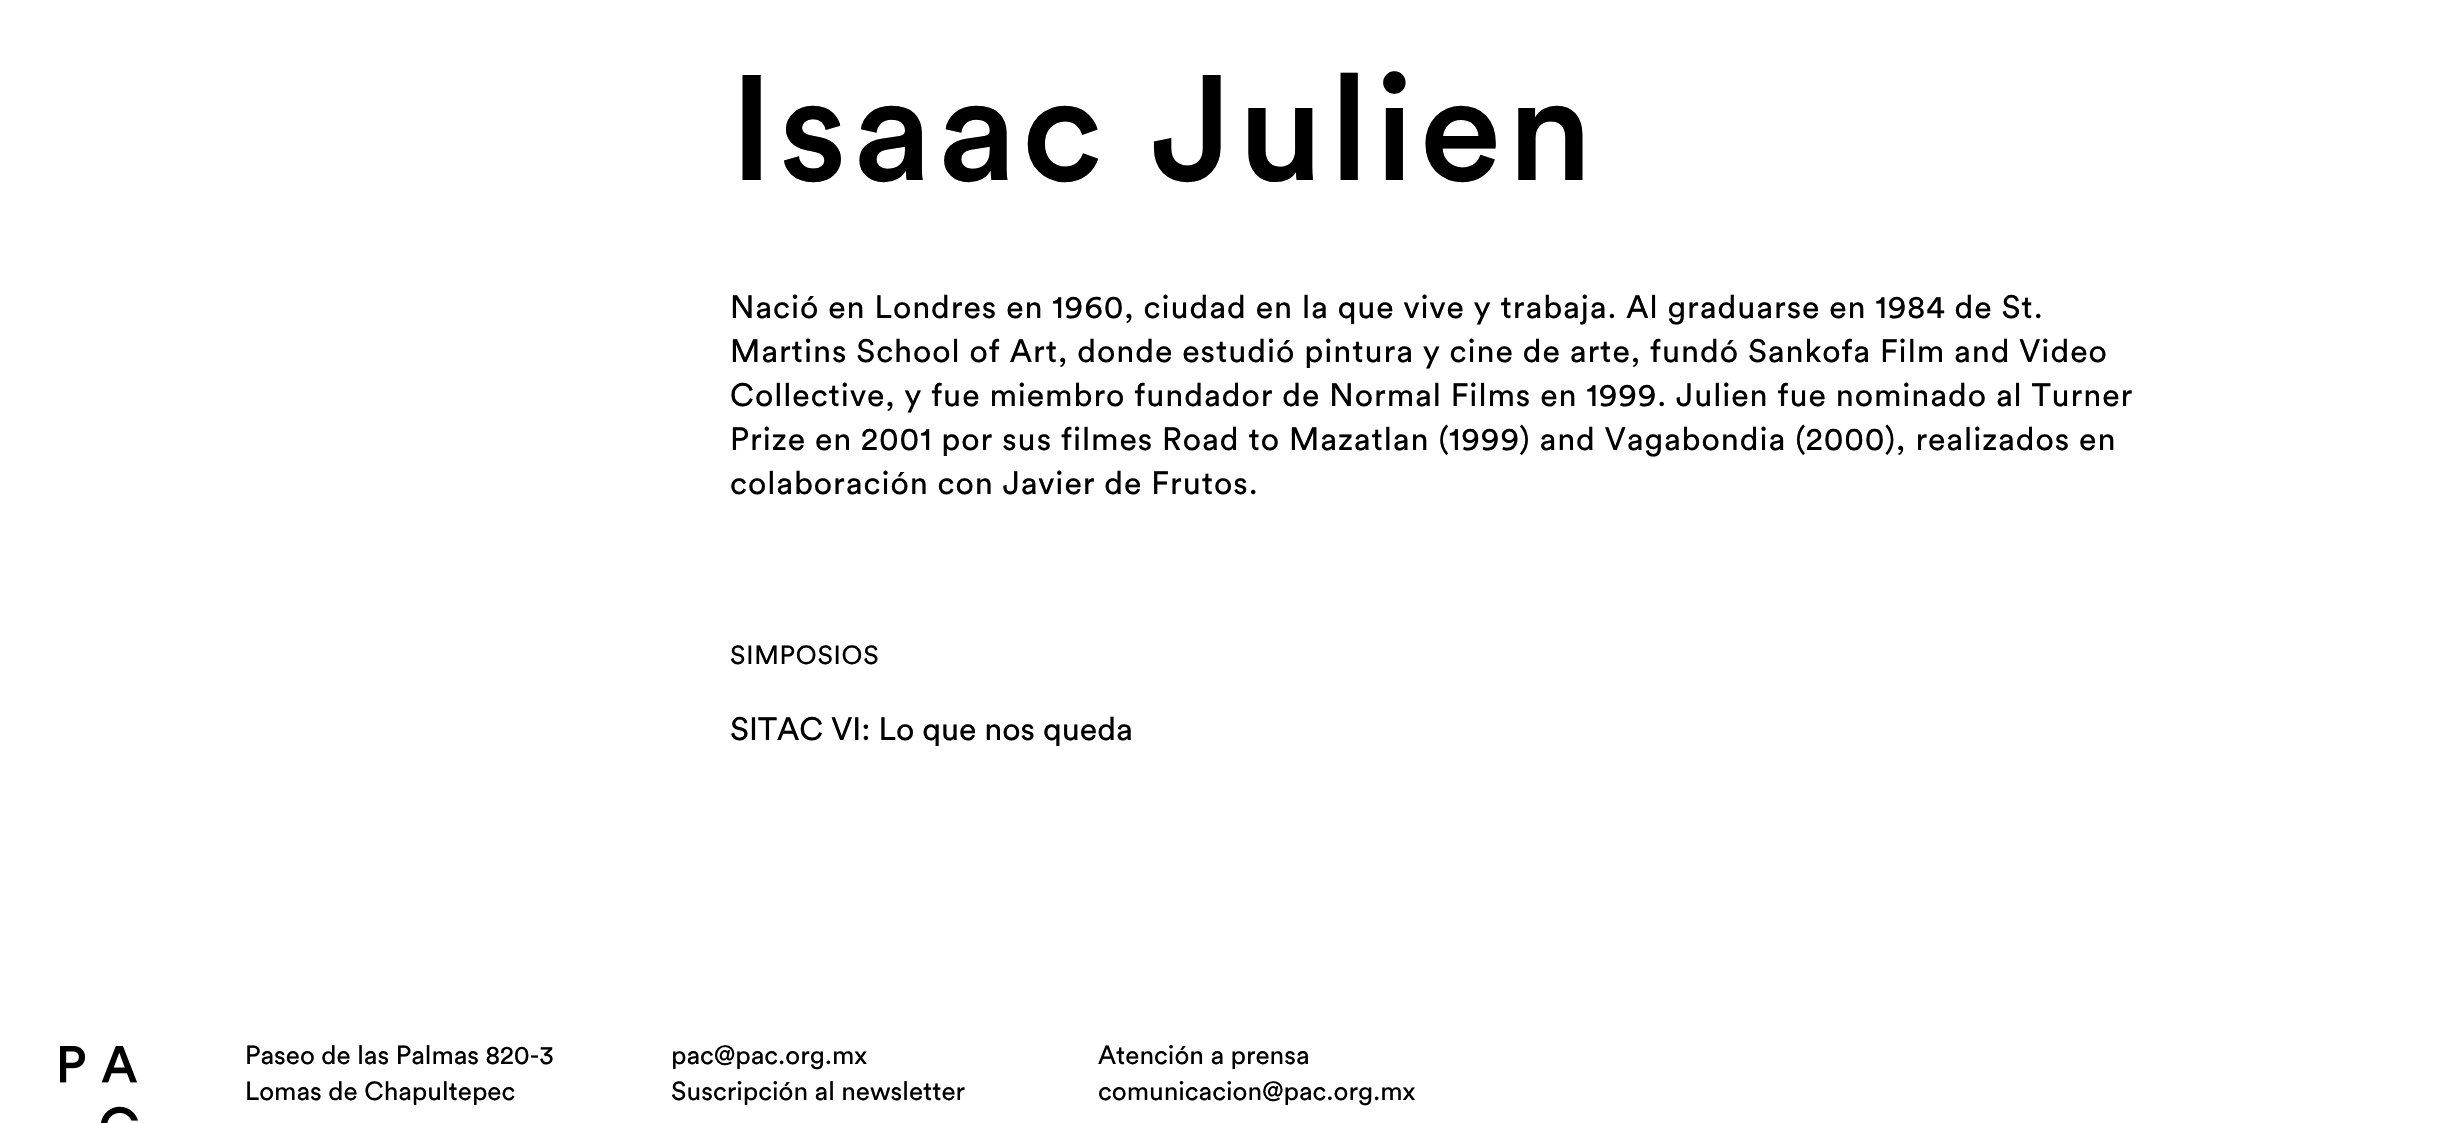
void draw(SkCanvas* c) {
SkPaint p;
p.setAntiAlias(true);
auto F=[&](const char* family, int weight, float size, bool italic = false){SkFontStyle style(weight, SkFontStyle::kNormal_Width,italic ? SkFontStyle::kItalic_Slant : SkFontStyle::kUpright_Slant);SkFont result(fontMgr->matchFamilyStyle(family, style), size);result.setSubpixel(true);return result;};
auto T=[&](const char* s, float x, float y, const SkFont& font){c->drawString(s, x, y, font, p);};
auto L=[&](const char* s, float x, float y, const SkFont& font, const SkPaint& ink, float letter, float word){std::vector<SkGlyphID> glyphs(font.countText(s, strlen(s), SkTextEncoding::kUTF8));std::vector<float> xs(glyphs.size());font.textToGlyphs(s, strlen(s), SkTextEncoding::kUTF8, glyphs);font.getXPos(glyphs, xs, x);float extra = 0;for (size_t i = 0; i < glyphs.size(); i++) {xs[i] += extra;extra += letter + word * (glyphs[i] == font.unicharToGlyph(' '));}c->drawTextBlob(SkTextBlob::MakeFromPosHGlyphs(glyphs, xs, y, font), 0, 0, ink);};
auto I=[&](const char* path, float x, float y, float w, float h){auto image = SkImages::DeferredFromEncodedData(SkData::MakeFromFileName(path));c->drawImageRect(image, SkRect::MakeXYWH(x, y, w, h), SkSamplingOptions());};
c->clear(0xffffffff);
auto f1 = F("Circular",500,148);
p.setColor(0xff000000);
L("Isaac Julien",730,180,f1,p,6,0);
auto f2 = F("Circular",400,32);
L("Nació en Londres en 1960, ciudad en la que vive y trabaja. Al graduarse en 1984 de St.",730,318,f2,p,.95,0);
L("Martins School of Art, donde estudió pintura y cine de arte, fundó Sankofa Film and Video",730,362,f2,p,.95,0);
L("Collective, y fue miembro fundador de Normal Films en 1999. Julien fue nominado al Turner",730,406,f2,p,.95,0);
L("Prize en 2001 por sus filmes Road to Mazatlan (1999) and Vagabondia (2000), realizados en",730,450,f2,p,.95,0);
L("colaboración con Javier de Frutos.",730,494,f2,p,.95,0);
auto f3 = F("Circular",400,26);
L("SIMPOSIOS",730,664,f3,p,.75,0);
T("SITAC VI: Lo que nos queda",730,740,f2);
I("1.png",60,1046,78,77);
T("Paseo de las Palmas 820-3",245,1064,f3);
T("Lomas de Chapultepec",245,1100,f3);
T("pac@pac.org.mx",671,1064,f3);
T("Suscripción al newsletter",671,1100,f3);
T("Atención a prensa",1098,1064,f3);
T("comunicacion@pac.org.mx",1098,1100,f3);
}
